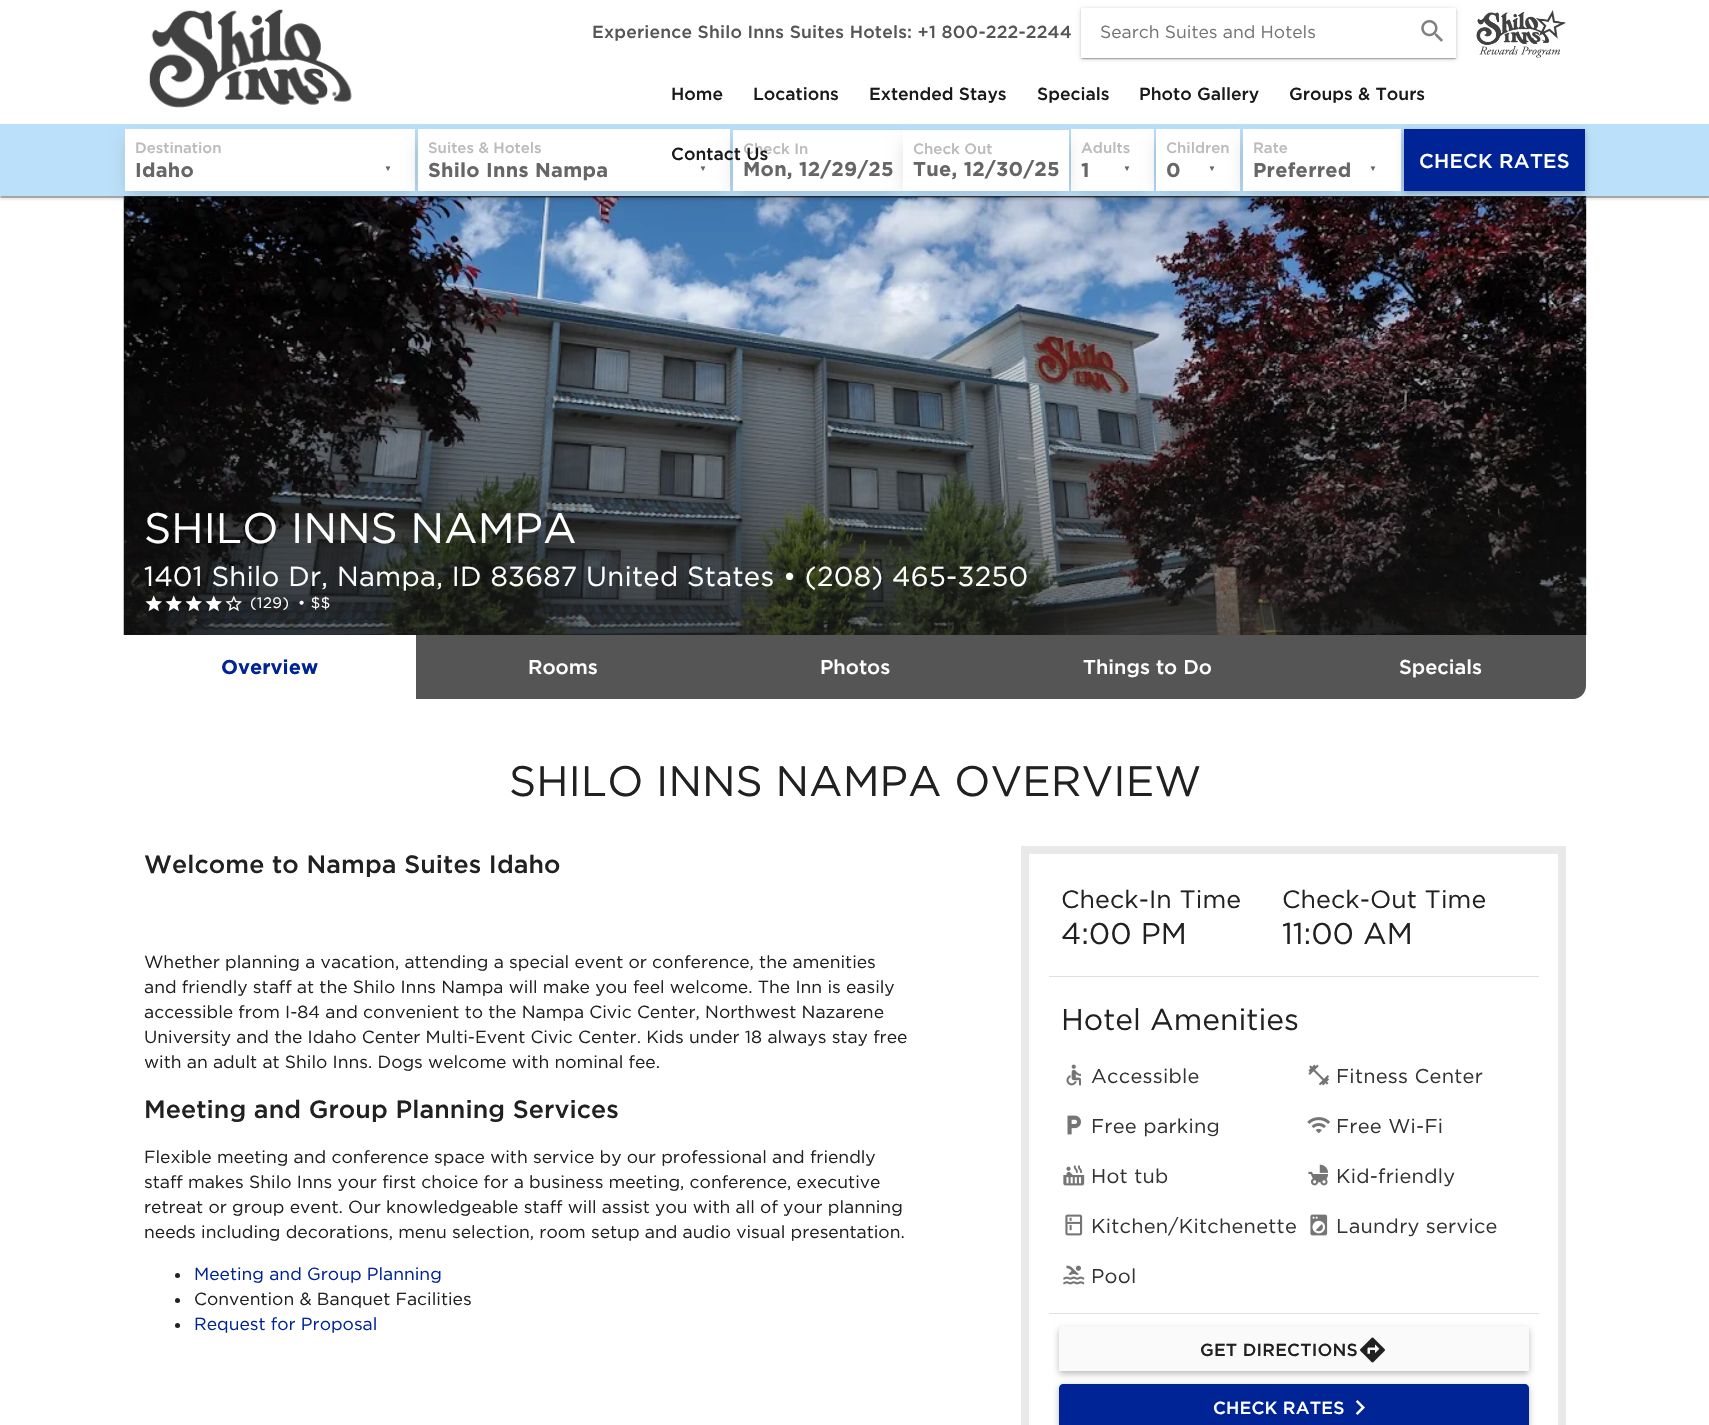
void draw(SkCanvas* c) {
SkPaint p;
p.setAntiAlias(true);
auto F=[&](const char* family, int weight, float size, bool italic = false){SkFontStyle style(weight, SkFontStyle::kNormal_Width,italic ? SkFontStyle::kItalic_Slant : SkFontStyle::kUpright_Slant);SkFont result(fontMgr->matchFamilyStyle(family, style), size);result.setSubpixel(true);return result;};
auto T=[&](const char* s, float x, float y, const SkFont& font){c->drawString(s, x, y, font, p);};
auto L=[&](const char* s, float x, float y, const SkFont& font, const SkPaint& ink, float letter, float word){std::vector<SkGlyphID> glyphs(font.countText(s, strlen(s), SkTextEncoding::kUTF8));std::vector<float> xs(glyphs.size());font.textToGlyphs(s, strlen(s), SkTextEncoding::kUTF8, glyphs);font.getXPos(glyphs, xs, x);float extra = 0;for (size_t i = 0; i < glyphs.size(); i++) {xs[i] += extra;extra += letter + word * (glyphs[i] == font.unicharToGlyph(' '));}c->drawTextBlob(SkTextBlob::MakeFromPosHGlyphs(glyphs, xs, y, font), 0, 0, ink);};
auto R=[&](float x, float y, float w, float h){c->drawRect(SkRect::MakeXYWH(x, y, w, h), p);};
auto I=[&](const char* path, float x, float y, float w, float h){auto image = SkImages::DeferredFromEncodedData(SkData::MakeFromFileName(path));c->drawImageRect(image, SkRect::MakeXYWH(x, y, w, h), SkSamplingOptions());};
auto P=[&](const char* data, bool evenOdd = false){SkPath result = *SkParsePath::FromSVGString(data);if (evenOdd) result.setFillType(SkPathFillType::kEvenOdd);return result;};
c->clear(0xffffffff);
p.setColor(0xff333333);
R(124,196,1462,1);
I("4.png",123,196,1464,439);
c->save();
c->clipRect(SkRect::MakeXYWH(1,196,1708,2));
p.setColor(0x1f000000);
p.setMaskFilter(SkMaskFilter::MakeBlur(kNormal_SkBlurStyle, .5));
c->drawRect(SkRect::MakeXYWH(1,4,1708,194),p);
p.setMaskFilter(nullptr);
c->restore();
c->save();
c->clipRect(SkRect::MakeXYWH(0,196,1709,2));
p.setColor(0x24000000);
p.setMaskFilter(SkMaskFilter::MakeBlur(kNormal_SkBlurStyle, .5));
c->drawRect(SkRect::MakeXYWH(0,1,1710,197),p);
p.setMaskFilter(nullptr);
c->restore();
c->save();
c->clipRect(SkRect::MakeXYWH(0,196,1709,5));
p.setColor(0x33000000);
p.setMaskFilter(SkMaskFilter::MakeBlur(kNormal_SkBlurStyle, 2));
c->drawRect(SkRect::MakeXYWH(0,1,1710,197),p);
p.setMaskFilter(nullptr);
c->restore();
I("1.png",149,9,203,99);
auto f1 = F("Gotham",500,17.5);
p.setColor(0xff555555);
L("Experience Shilo Inns Suites Hotels: +1 800-222-2244",592,38,f1,p,.18,0);
c->save();
c->clipPath(P("M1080 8h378v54h-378zm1 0h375v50h-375z",true),true);
p.setColor(0x1f000000);
p.setMaskFilter(SkMaskFilter::MakeBlur(kNormal_SkBlurStyle, .5));
c->drawRect(SkRect::MakeXYWH(1083,11,372,48),p);
p.setMaskFilter(nullptr);
c->restore();
c->save();
c->clipPath(P("M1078 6h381v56h-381zm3 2h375v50h-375z",true),true);
p.setColor(0x24000000);
p.setMaskFilter(SkMaskFilter::MakeBlur(kNormal_SkBlurStyle, .5));
c->drawRect(SkRect::MakeXYWH(1081,9,375,50),p);
p.setMaskFilter(nullptr);
c->restore();
c->save();
c->clipPath(P("M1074 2h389v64h-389zm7 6h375v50h-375z",true),true);
p.setColor(0x33000000);
p.setMaskFilter(SkMaskFilter::MakeBlur(kNormal_SkBlurStyle, 2));
c->drawRect(SkRect::MakeXYWH(1081,9,375,50),p);
p.setMaskFilter(nullptr);
c->restore();
auto f2 = F("Gotham",400,17.5);
p.setColor(0xff757575);
T("Search Suites and Hotels",1100,38,f2);
I("2.png",1421,20,22,22);
I("3.png",1476,10,91,48);
p.setColor(0xff1a1a1a);
T("Home",671,100,f1);
T("Locations",753,100,f1);
T("Extended Stays",869,100,f1);
T("Specials",1037,100,f1);
T("Photo Gallery",1139,100,f1);
T("Groups & Tours",1289,100,f1);
p.setColor(0xffbbe0f9);
R(0,124,1709,72);
p.setColor(0x33000000);
p.setMaskFilter(SkMaskFilter::MakeBlur(kNormal_SkBlurStyle, 9.5));
c->drawRect(SkRect::MakeXYWH(130,140,280,53),p);
p.setMaskFilter(nullptr);
p.setColor(0xffffffff);
R(125,129,290,62);
p.setColor(0x33000000);
p.setMaskFilter(SkMaskFilter::MakeBlur(kNormal_SkBlurStyle, 9.5));
c->drawRect(SkRect::MakeXYWH(423,140,302,53),p);
p.setMaskFilter(nullptr);
p.setColor(0xffffffff);
R(418,129,312,62);
p.setColor(0x33000000);
p.setMaskFilter(SkMaskFilter::MakeBlur(kNormal_SkBlurStyle, 9.5));
c->drawRect(SkRect::MakeXYWH(738,141,160,52),p);
p.setMaskFilter(nullptr);
p.setColor(0xffffffff);
R(733,130,170,61);
auto f3 = F("Gotham",500,15);
p.setColor(0xffbbbbbb);
T("Check In",743,154,f3);
p.setColor(0xff1a1a1a);
T("Contact Us",671,160,f1);
p.setColor(0xffbbbbbb);
T("Destination",135,153,f3);
auto f4 = F("Gotham",700,20);
p.setColor(0xff666666);
L("Idaho",135,177,f4,p,.25,0);
auto f5 = F("Liberation Serif",700,8);
L("▼",384,171,f5,p,8,0);
p.setColor(0xffbbbbbb);
T("Suites & Hotels",428,153,f3);
p.setColor(0xff666666);
L("Shilo Inns Nampa",428,177,f4,p,.25,0);
L("▼",699,171,f5,p,8,0);
L("Mon, 12/29/25",743,176,f4,p,.25,0);
p.setColor(0x33000000);
p.setMaskFilter(SkMaskFilter::MakeBlur(kNormal_SkBlurStyle, 9.5));
c->drawRect(SkRect::MakeXYWH(1076,140,73,53),p);
p.setMaskFilter(nullptr);
p.setColor(0xffffffff);
R(1071,129,83,62);
p.setColor(0x33000000);
p.setMaskFilter(SkMaskFilter::MakeBlur(kNormal_SkBlurStyle, 9.5));
c->drawRect(SkRect::MakeXYWH(908,141,156,52),p);
p.setMaskFilter(nullptr);
p.setColor(0xffffffff);
R(903,130,166,61);
p.setColor(0xffbbbbbb);
T("Check Out",913,154,f3);
p.setColor(0xff666666);
L("Tue, 12/30/25",913,176,f4,p,.25,0);
p.setColor(0xffbbbbbb);
T("Adults",1081,153,f3);
p.setColor(0xff666666);
L("1",1081,177,f4,p,.25,0);
L("▼",1123,171,f5,p,8,0);
p.setColor(0x33000000);
p.setMaskFilter(SkMaskFilter::MakeBlur(kNormal_SkBlurStyle, 9.5));
c->drawRect(SkRect::MakeXYWH(1161,140,74,53),p);
p.setMaskFilter(nullptr);
p.setColor(0xffffffff);
R(1156,129,84,62);
p.setColor(0xffbbbbbb);
T("Children",1166,153,f3);
p.setColor(0xff666666);
L("0",1166,177,f4,p,.25,0);
L("▼",1208,171,f5,p,8,0);
p.setColor(0x33000000);
p.setMaskFilter(SkMaskFilter::MakeBlur(kNormal_SkBlurStyle, 9.5));
c->drawRect(SkRect::MakeXYWH(1248,140,148,53),p);
p.setMaskFilter(nullptr);
p.setColor(0xffffffff);
R(1243,129,158,62);
p.setColor(0xffbbbbbb);
T("Rate",1253,153,f3);
p.setColor(0xff666666);
L("Preferred",1253,177,f4,p,.25,0);
L("▼",1369,171,f5,p,8,0);
p.setColor(0x42000000);
p.setMaskFilter(SkMaskFilter::MakeBlur(kNormal_SkBlurStyle, 3));
c->drawRect(SkRect::MakeXYWH(1404,131,181,63),p);
p.setMaskFilter(nullptr);
p.setColor(0xff002395);
R(1404,129,181,62);
auto f6 = F("Gotham",500,20);
p.setColor(0xffffffff);
L("CHECK RATES",1419,168,f6,p,.25,0);
auto f7 = F("Gotham",400,42.5);
T("SHILO INNS NAMPA",144,543,f7);
auto f8 = F("Gotham",400,27.5);
L("1401 Shilo Dr, Nampa, ID 83687 United States • (208) 465-3250",144,586,f8,p,.28,0);
I("5.png",145,595,17,17);
I("6.png",165,595,17,17);
I("7.png",185,595,17,17);
I("8.png",205,595,17,17);
I("9.png",225,595,17,17);
auto f9 = F("Gotham",400,15);
L("(129)",250,608,f9,p,.5,0);
L("• $$",298,608,f9,p,.5,0);
p.setColor(0xff002395);
T("Overview",221,674,f4);
p.setColor(0xff555555);
R(416,635,878,64);
p.setColor(0xffffffff);
T("Rooms",528,674,f6);
T("Photos",820,674,f6);
T("Things to Do",1083,674,f6);
p.setColor(0xff555555);
c->drawPath(P("M1294 635h292v51c0 7-6 13-13 13h-279z"),p);
p.setColor(0xffffffff);
T("Specials",1399,674,f6);
p.setColor(0xff212121);
T("SHILO INNS NAMPA OVERVIEW",509,796,f7);
auto f10 = F("Gotham",500,25);
L("Welcome to Nampa Suites Idaho",144,873,f10,p,.1,0);
T("Whether planning a vacation, attending a special event or conference, the amenities",144,968,f2);
T("and friendly staff at the Shilo Inns Nampa will make you feel welcome. The Inn is easily",144,993,f2);
T("accessible from I-84 and convenient to the Nampa Civic Center, Northwest Nazarene",144,1018,f2);
T("University and the Idaho Center Multi-Event Civic Center. Kids under 18 always stay free",144,1043,f2);
T("with an adult at Shilo Inns. Dogs welcome with nominal fee.",144,1068,f2);
L("Meeting and Group Planning Services",144,1118,f10,p,.1,0);
T("Flexible meeting and conference space with service by our professional and friendly",144,1163,f2);
T("staff makes Shilo Inns your first choice for a business meeting, conference, executive",144,1188,f2);
T("retreat or group event. Our knowledgeable staff will assist you with all of your planning",144,1213,f2);
T("needs including decorations, menu selection, room setup and audio visual presentation.",144,1238,f2);
c->drawCircle(177.5,1275.5,2.5,p);
p.setColor(0xff002395);
T("Meeting and Group Planning",194,1280,f2);
p.setColor(0xff212121);
c->drawCircle(177.5,1300.5,2.5,p);
T("Convention & Banquet Facilities",194,1305,f2);
c->drawCircle(177.5,1325.5,2.5,p);
p.setColor(0xff002395);
T("Request for Proposal",194,1330,f2);
p.setStroke(true);
p.setStrokeWidth(8);
p.setColor(0xffe9e9e9);
c->drawRect(SkRect::MakeXYWH(1025,850,537,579),p);
auto f11 = F("Gotham",400,25);
p.setStroke(false);
p.setColor(0xff212121);
L("Check-In Time",1061,908,f11,p,.1,0);
auto f12 = F("Gotham",400,30);
T("4:00 PM",1061,944,f12);
L("Check-Out Time",1282,908,f11,p,.1,0);
T("11:00 AM",1282,944,f12);
p.setColor(0xffe0e0e0);
R(1049,976,490,1);
p.setColor(0xff212121);
T("Hotel Amenities",1061,1030,f12);
I("10.png",1066,1064,15,22);
auto f13 = F("Gotham",400,20);
p.setColor(0xff333333);
L("Accessible",1091,1083,f13,p,.25,0);
I("11.png",1308,1064,21,22);
L("Fitness Center",1336,1083,f13,p,.25,0);
I("12.png",1067,1115,14,20);
L("Free parking",1091,1133,f13,p,.25,0);
I("13.png",1307,1117,24,17);
L("Free Wi-Fi",1336,1133,f13,p,.25,0);
I("14.png",1063,1165,22,21);
L("Hot tub",1091,1183,f13,p,.25,0);
I("15.png",1308,1164,21,22);
L("Kid-friendly",1336,1183,f13,p,.25,0);
I("16.png",1065,1214,18,22);
L("Kitchen/Kitchenette",1091,1233,f13,p,.25,0);
I("17.png",1310,1214,18,22);
L("Laundry service",1336,1233,f13,p,.25,0);
I("18.png",1063,1265,22,20);
L("Pool",1091,1283,f13,p,.25,0);
p.setColor(0xffe0e0e0);
R(1049,1313,490,1);
p.setColor(0x42000000);
p.setMaskFilter(SkMaskFilter::MakeBlur(kNormal_SkBlurStyle, 3));
c->drawRoundRect(SkRect::MakeXYWH(1059,1329,470,45),4,4,p);
p.setMaskFilter(nullptr);
p.setColor(0xfffafafa);
c->drawPath(P("M1063 1326h462c2 0 4 2 4 4v41h-470v-41c0-2 2-4 4-4z"),p);
p.setColor(0xff212121);
L("GET DIRECTIONS",1200,1356,f1,p,.18,0);
I("19.png",1360,1337,25,26);
p.setColor(0x42000000);
p.setMaskFilter(SkMaskFilter::MakeBlur(kNormal_SkBlurStyle, 3));
c->drawRoundRect(SkRect::MakeXYWH(1059,1386,470,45),4,4,p);
p.setMaskFilter(nullptr);
p.setColor(0xff002395);
c->drawPath(P("M1063 1384h462c2 0 4 2 4 4v37h-470v-37c0-2 2-4 4-4z"),p);
p.setColor(0xffffffff);
L("CHECK RATES",1213,1414,f1,p,.18,0);
I("20.png",1355,1400,10,15);
}
